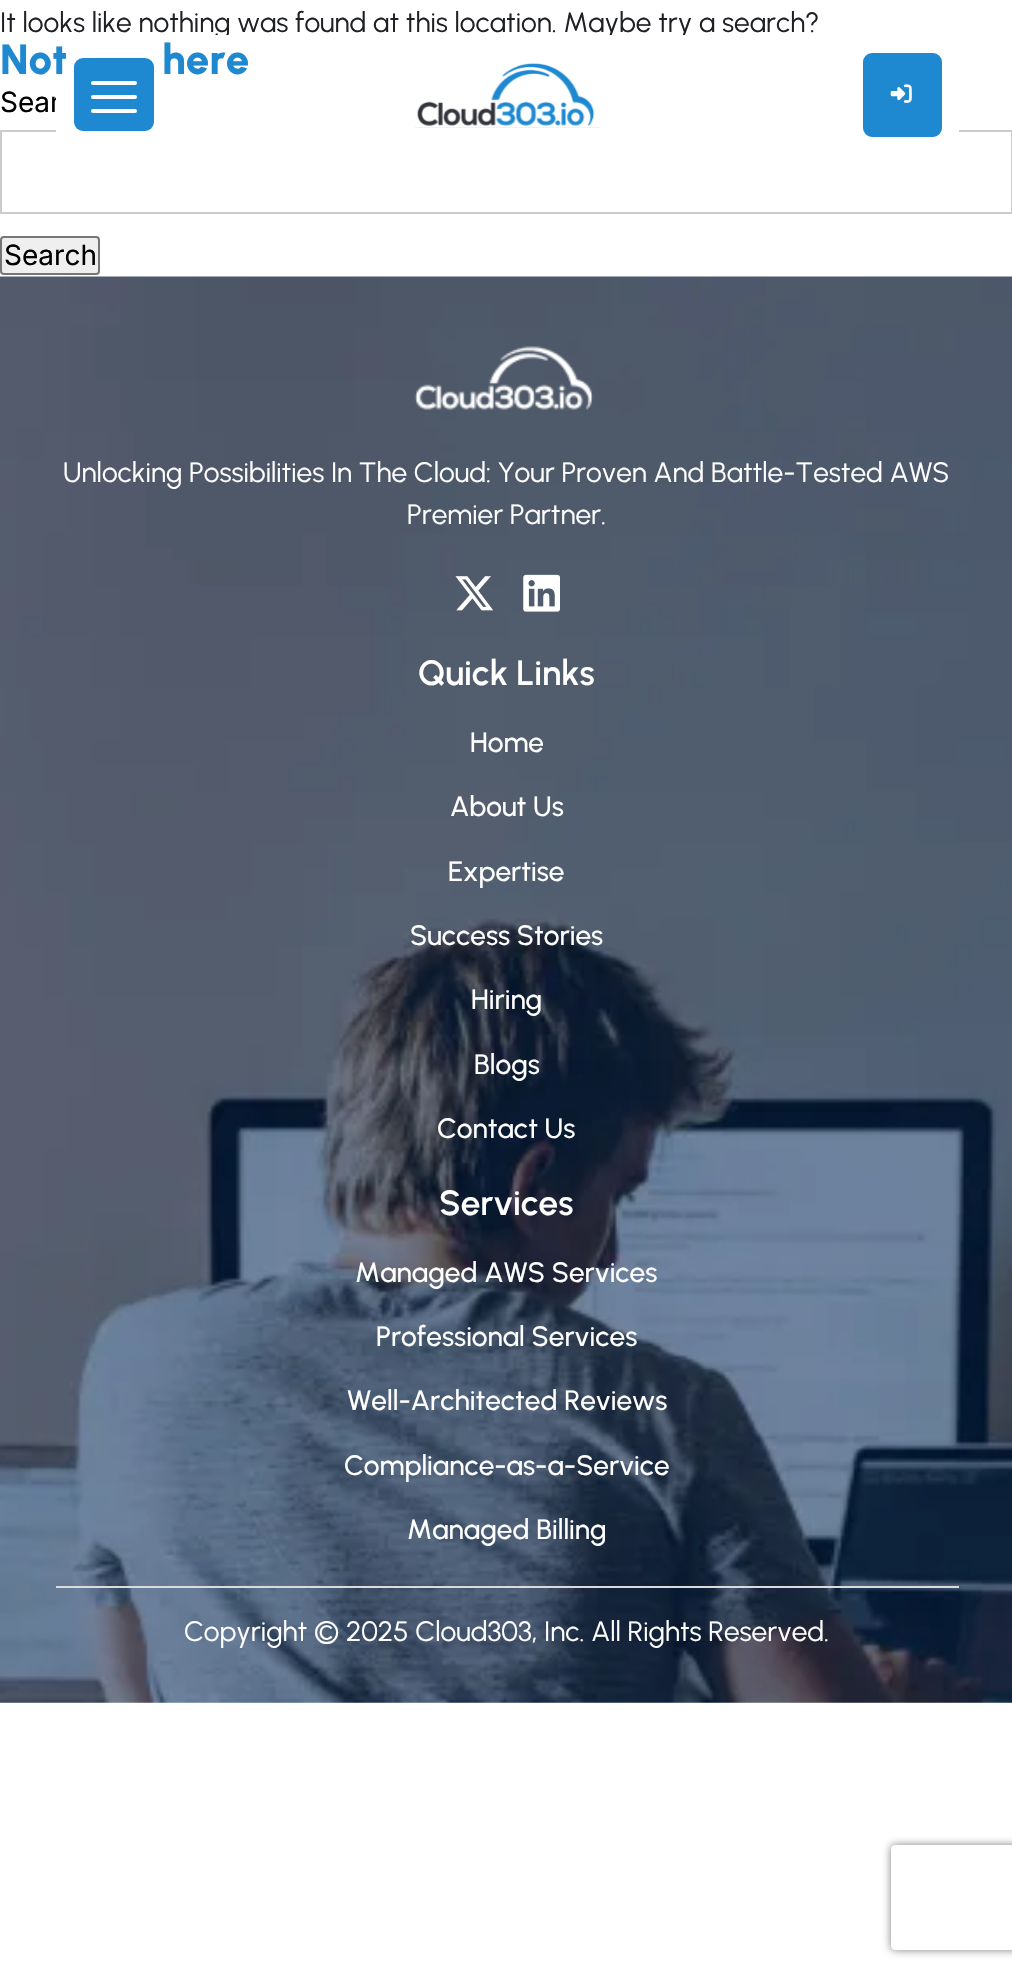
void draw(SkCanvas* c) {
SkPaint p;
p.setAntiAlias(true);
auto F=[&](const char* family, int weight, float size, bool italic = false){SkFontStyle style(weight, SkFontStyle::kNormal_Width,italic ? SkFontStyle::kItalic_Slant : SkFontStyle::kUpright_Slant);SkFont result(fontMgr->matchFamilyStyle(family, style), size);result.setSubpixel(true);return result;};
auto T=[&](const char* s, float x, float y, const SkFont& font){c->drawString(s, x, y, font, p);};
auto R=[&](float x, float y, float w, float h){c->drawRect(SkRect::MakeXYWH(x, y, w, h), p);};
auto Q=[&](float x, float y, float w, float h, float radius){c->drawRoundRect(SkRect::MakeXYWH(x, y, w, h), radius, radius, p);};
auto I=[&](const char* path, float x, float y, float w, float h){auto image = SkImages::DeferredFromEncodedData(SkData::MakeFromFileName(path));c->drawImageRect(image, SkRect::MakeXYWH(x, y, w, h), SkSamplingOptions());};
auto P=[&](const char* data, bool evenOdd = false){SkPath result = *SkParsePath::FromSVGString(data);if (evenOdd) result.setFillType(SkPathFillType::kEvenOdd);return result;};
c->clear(0xffffffff);
auto f1 = F("Urbanist",400,28);
p.setColor(0xff1e2024);
T("It looks like nothing was found at this location. Maybe try a search?",0,32,f1);
auto f2 = F("Inter",400,28);
p.setColor(0xff000000);
T("Sear",0,112,f2);
p.setStroke(true);
p.setStrokeWidth(2);
p.setColor(0xffcccccc);
c->drawRect(SkRect::MakeXYWH(1,131,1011,82),p);
p.setStroke(false);
p.setColor(0xffefefef);
c->drawRoundRect(SkRect::MakeXYWH(1,237,98,37),3,3,p);
p.setStroke(true);
p.setColor(0xff767676);
c->drawRoundRect(SkRect::MakeXYWH(1,237,98,37),3,3,p);
p.setStroke(false);
p.setColor(0xff000000);
T("Search",4,265,f2);
p.setColor(0xffffffff);
Q(56,35,903,119,18);
p.setColor(0xff1e89d1);
Q(74,58,80,73,9);
p.setColor(0xffffffff);
Q(91,81,46,4,2);
Q(91,95,46,4,2);
Q(91,109,46,4,2);
I("1.png",415,63,185,65);
p.setColor(0xff1e89d1);
c->drawRoundRect(SkRect::MakeXYWH(864,54,77,82),8,8,p);
p.setStroke(true);
c->drawRoundRect(SkRect::MakeXYWH(864,54,77,82),8,8,p);
I("2.png",890,84,22,19);
auto f3 = F("Urbanist",800,42);
p.setStroke(false);
T("Not",0,74,f3);
T("here",162,74,f3);
I("3.png",0,276,1012,1427);
I("4.png",414,346,180,64);
p.setColor(0xffffffff);
T("Unlocking Possibilities In The Cloud: Your Proven And Battle-Tested AWS",63,482,f1);
T("Premier Partner.",407,524,f1);
I("5.png",455,576,39,35);
I("6.png",523,574,37,38);
auto f4 = F("Urbanist",600,35);
T("Quick Links",418,685,f4);
auto f5 = F("Urbanist",500,28);
T("Home",470,752,f5);
T("About Us",450,816,f5);
T("Expertise",448,881,f5);
T("Success Stories",410,945,f5);
T("Hiring",471,1009,f5);
T("Blogs",474,1074,f5);
T("Contact Us",437,1138,f5);
T("Services",439,1215,f4);
T("Managed AWS Services",355,1282,f5);
T("Professional Services",376,1346,f5);
T("Well-Architected Reviews",347,1410,f5);
T("Compliance-as-a-Service",344,1475,f5);
T("Managed Billing",407,1539,f5);
p.setColor(0xffdbdbdb);
R(56,1586,903,2);
p.setColor(0xffffffff);
T("Copyright © 2025 Cloud303, Inc. All Rights Reserved.",184,1641,f1);
c->save();
c->clipPath(P("M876 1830h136v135h-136zm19 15h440c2 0 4 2 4 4v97c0 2-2 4-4 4h-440c-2 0-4-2-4-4v-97c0-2 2-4 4-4z",true),true);
p.setColor(0xff808080);
p.setMaskFilter(SkMaskFilter::MakeBlur(kNormal_SkBlurStyle, 4.5));
c->drawRoundRect(SkRect::MakeXYWH(891,1845,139,105),4,4,p);
p.setMaskFilter(nullptr);
c->restore();
}
